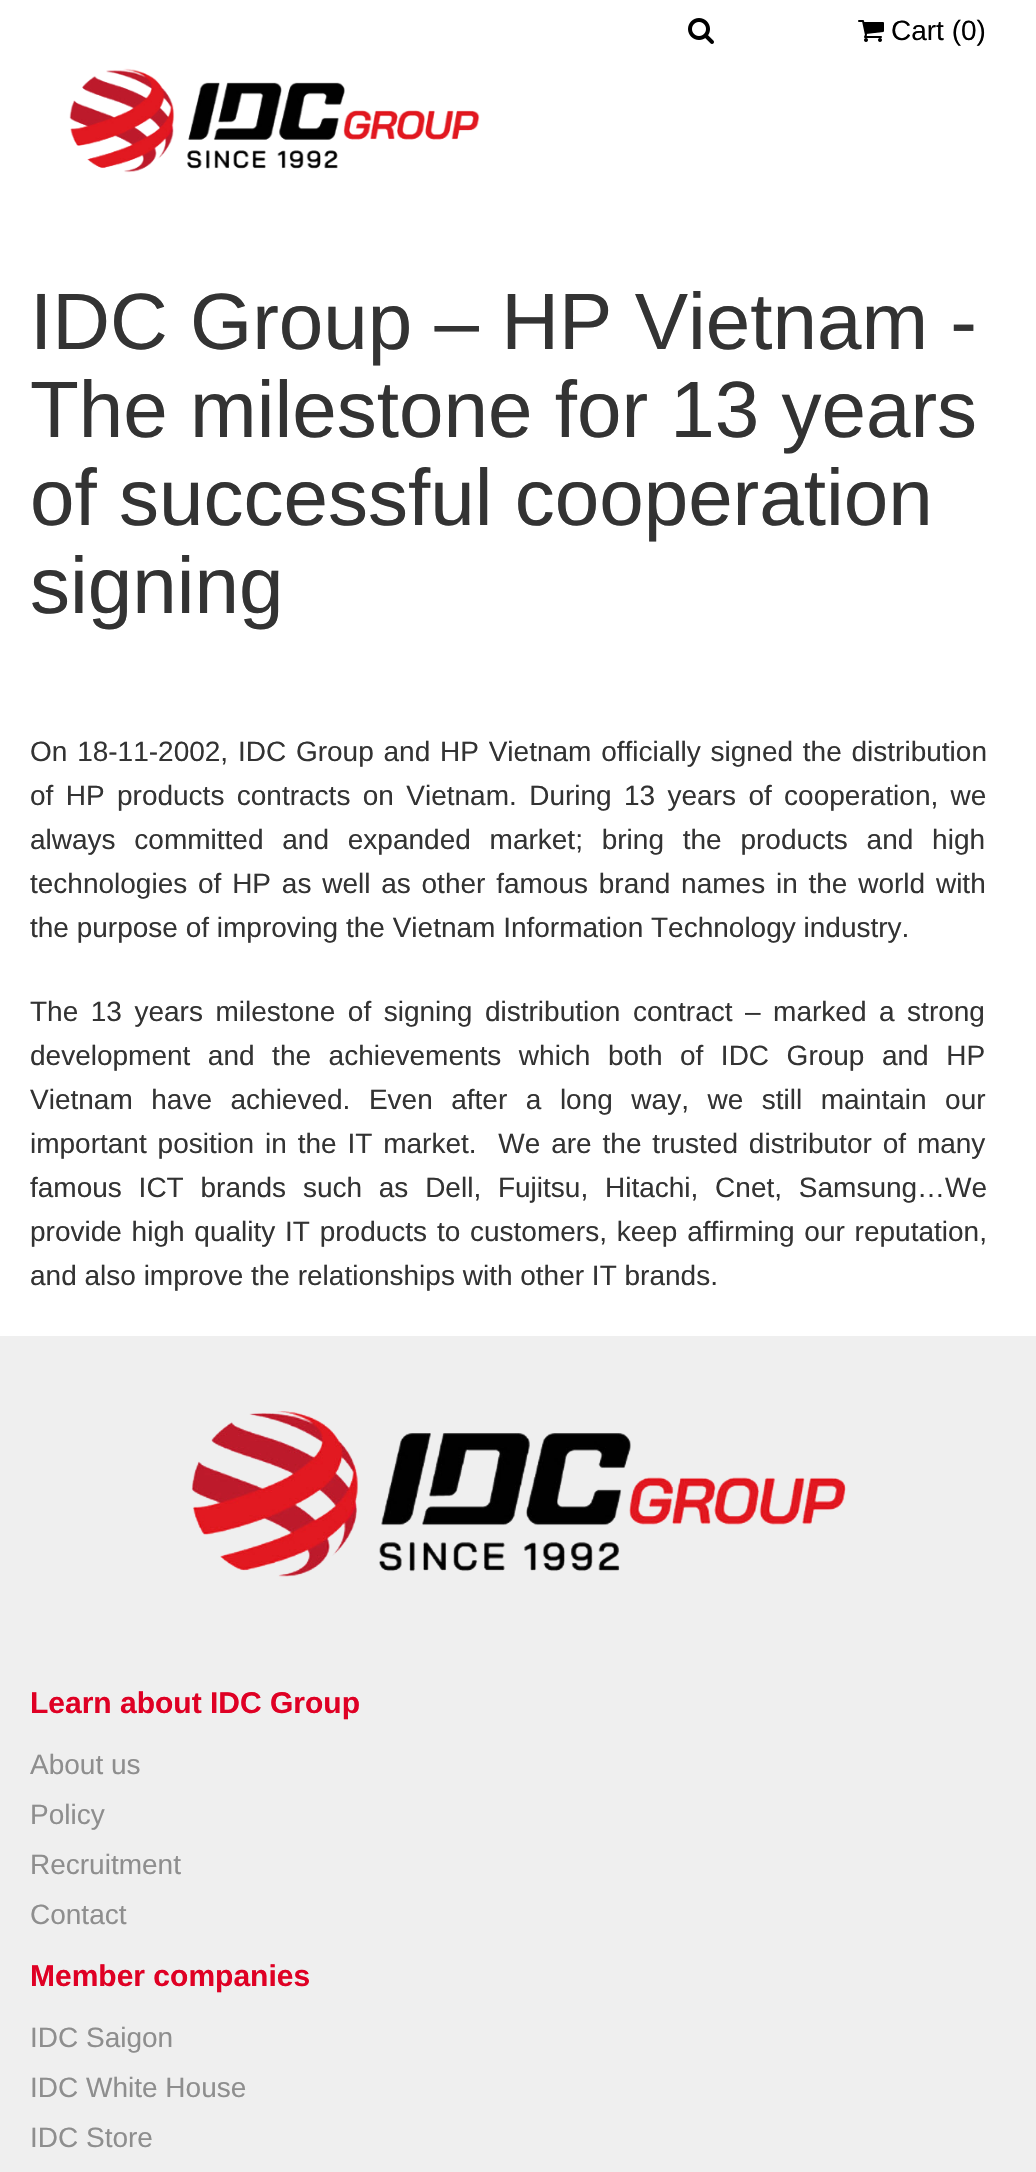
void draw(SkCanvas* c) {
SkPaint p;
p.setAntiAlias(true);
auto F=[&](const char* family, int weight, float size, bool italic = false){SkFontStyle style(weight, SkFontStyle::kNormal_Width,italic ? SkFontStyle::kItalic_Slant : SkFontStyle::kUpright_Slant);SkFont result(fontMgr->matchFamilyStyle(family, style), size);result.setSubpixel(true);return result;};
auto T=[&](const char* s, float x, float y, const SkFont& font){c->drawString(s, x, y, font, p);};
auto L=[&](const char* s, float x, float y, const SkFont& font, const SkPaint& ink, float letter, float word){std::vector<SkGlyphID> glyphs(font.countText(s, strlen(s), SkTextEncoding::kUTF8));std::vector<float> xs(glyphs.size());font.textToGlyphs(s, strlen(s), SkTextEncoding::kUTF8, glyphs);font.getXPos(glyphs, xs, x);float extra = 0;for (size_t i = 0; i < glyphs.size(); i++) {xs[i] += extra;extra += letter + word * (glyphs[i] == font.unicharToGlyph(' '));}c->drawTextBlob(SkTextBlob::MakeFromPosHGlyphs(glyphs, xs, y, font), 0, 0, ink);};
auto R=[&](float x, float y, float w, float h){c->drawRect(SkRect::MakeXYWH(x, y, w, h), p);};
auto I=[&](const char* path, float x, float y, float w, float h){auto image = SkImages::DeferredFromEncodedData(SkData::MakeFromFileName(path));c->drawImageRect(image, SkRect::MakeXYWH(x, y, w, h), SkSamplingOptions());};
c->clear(0xffffffff);
I("1.png",688,18,26,26);
I("2.png",858,20,26,22);
auto f1 = F("Liberation Sans",400,28);
p.setColor(0xff000000);
T("Cart (0)",891,40,f1);
I("3.png",69,68,411,105);
auto f2 = F("Liberation Sans",400,80);
p.setColor(0xff333333);
T("IDC Group – HP Vietnam -",30,349,f2);
T("The milestone for 13 years",30,437,f2);
T("of successful cooperation",30,525,f2);
T("signing",30,613,f2);
L("On 18-11-2002, IDC Group and HP Vietnam officially signed the distribution",30,761,f1,p,0,2);
L("of HP products contracts on Vietnam. During 13 years of cooperation, we",30,805,f1,p,0,4.6);
L("always committed and expanded market; bring the products and high",30,849,f1,p,0,11);
L("technologies of HP as well as other famous brand names in the world with",30,893,f1,p,0,3);
T("the purpose of improving the Vietnam Information Technology industry.",30,937,f1);
L("The 13 years milestone of signing distribution contract – marked a strong",30,1021,f1,p,0,4.75);
L("development and the achievements which both of IDC Group and HP",30,1065,f1,p,0,9.75);
L("Vietnam have achieved. Even after a long way, we still maintain our",30,1109,f1,p,0,10.75);
L("important position in the IT market.  We are the trusted distributor of many",30,1153,f1,p,0,3.1);
L("famous ICT brands such as Dell, Fujitsu, Hitachi, Cnet, Samsung…We",30,1197,f1,p,0,9);
L("provide high quality IT products to customers, keep affirming our reputation,",30,1241,f1,p,0,2);
T("and also improve the relationships with other IT brands.",30,1285,f1);
p.setColor(0xffefefef);
R(0,1336,1036,836);
I("4.png",191,1411,655,166);
auto f3 = F("Liberation Sans",700,30);
p.setColor(0xffdf0024);
T("Learn about IDC Group",30,1713,f3);
p.setColor(0xff8e8e8e);
T("About us",30,1774,f1);
T("Policy",30,1824,f1);
T("Recruitment",30,1874,f1);
T("Contact",30,1924,f1);
p.setColor(0xffdf0024);
T("Member companies",30,1986,f3);
p.setColor(0xff8e8e8e);
T("IDC Saigon",30,2047,f1);
T("IDC White House",30,2097,f1);
T("IDC Store",30,2147,f1);
}
